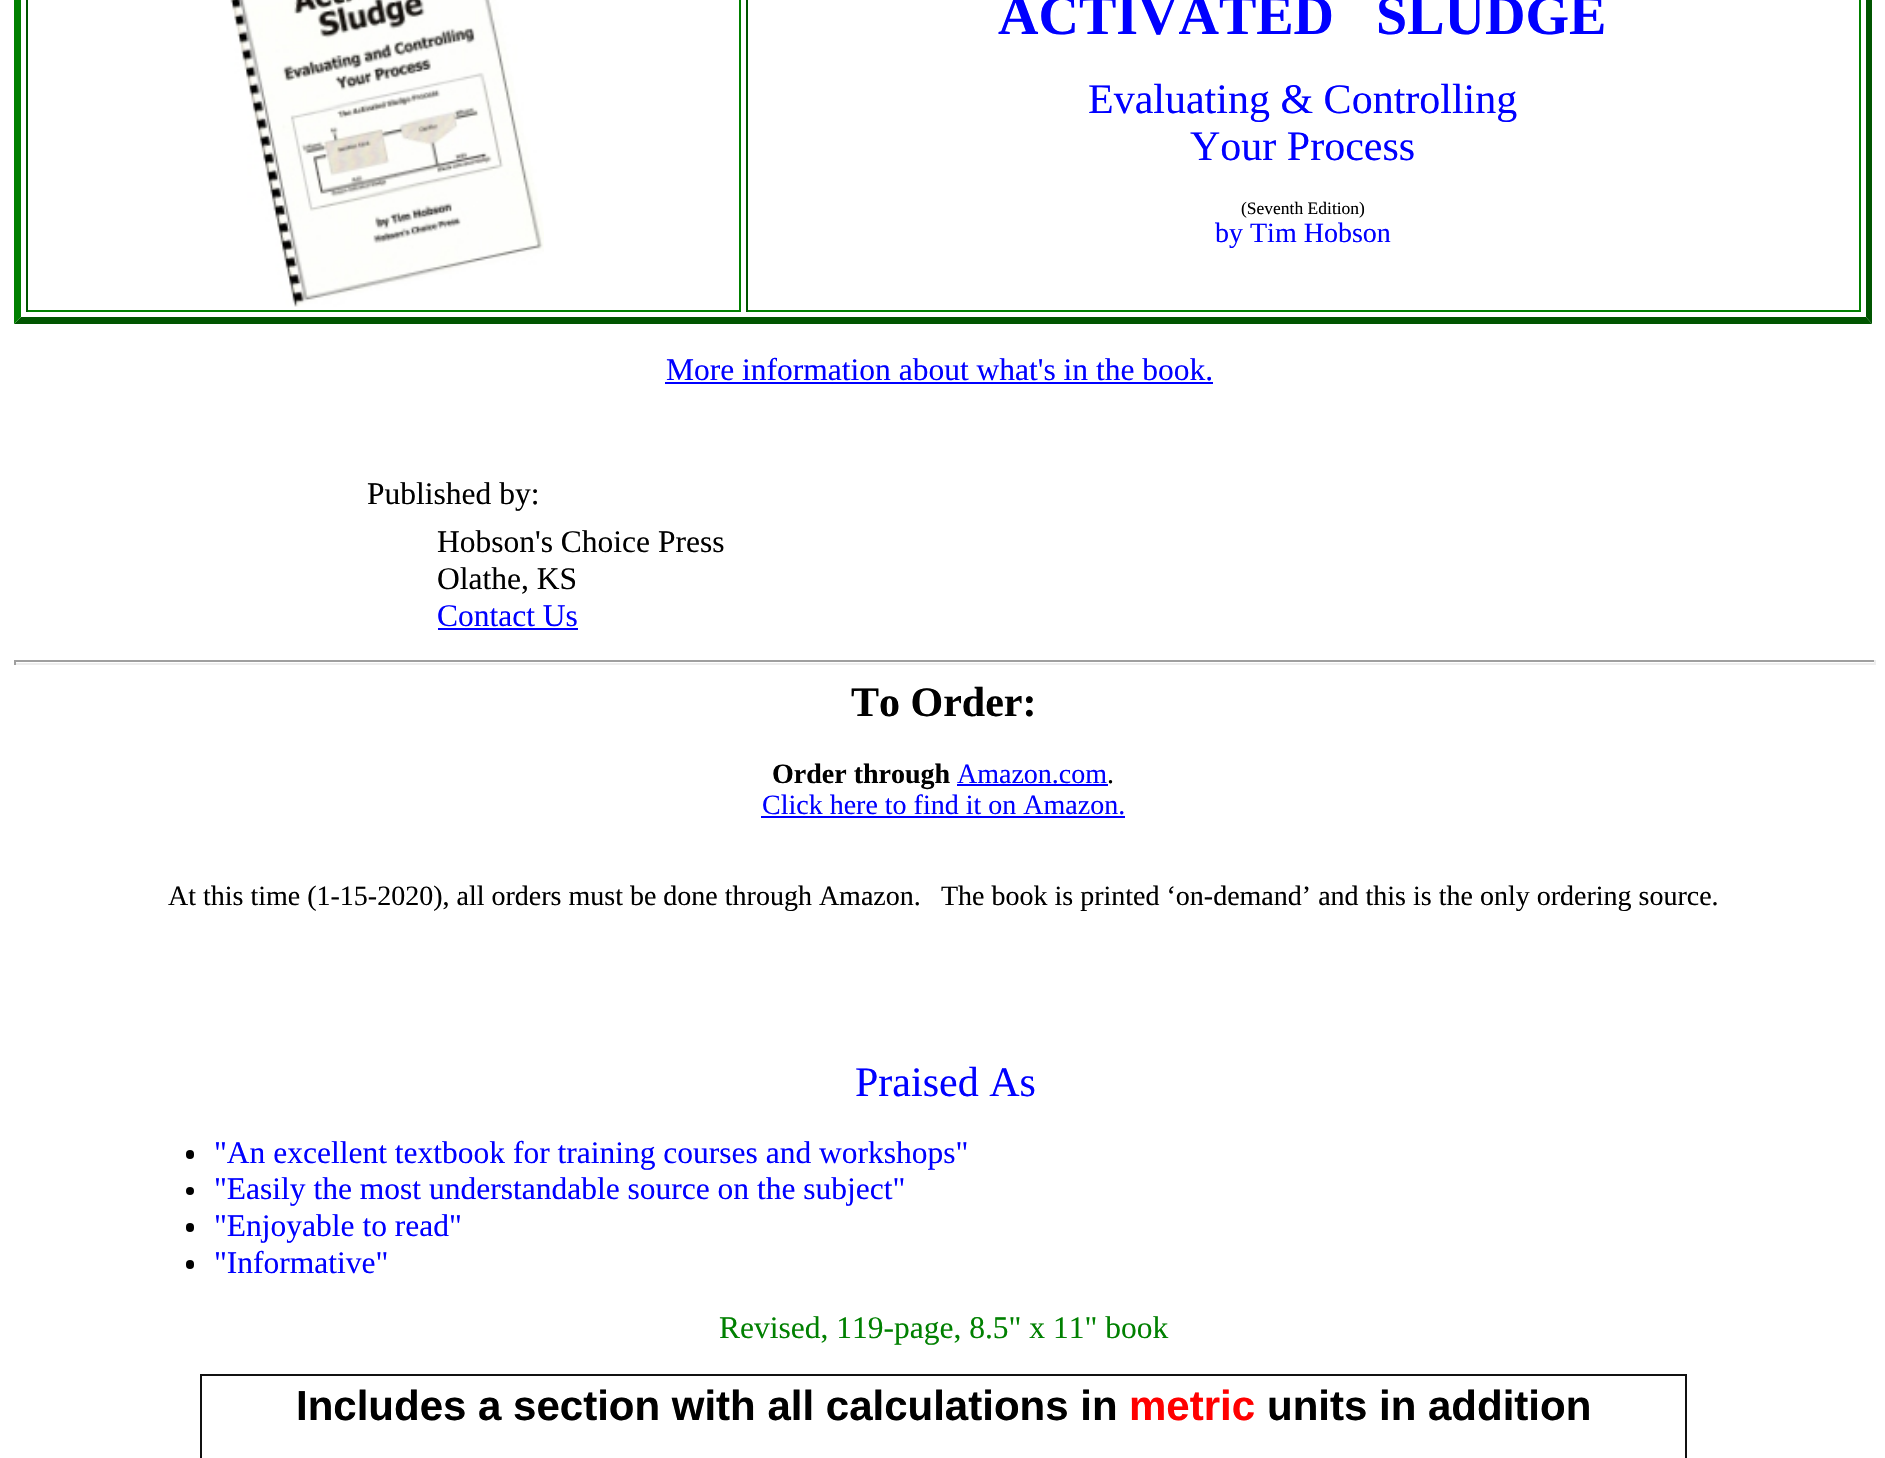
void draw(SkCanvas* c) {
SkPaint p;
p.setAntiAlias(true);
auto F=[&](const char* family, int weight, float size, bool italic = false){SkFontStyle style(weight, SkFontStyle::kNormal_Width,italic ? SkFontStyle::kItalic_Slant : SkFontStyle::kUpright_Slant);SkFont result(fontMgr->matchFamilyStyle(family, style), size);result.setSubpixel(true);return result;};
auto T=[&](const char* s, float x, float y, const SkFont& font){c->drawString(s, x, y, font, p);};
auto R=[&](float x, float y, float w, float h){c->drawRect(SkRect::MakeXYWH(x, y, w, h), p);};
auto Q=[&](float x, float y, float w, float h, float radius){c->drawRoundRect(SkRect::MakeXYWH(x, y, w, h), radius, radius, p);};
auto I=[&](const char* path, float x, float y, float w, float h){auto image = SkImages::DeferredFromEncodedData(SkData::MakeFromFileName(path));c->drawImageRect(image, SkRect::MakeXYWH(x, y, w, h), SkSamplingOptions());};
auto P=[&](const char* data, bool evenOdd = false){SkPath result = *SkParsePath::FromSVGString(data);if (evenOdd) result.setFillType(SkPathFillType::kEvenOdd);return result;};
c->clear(0xffffffff);
p.setColor(0xff005500);
c->drawPath(P("M1872-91v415l-6-7v-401z"),p);
c->drawPath(P("M1872 324h-1858l7-7h1845z"),p);
p.setColor(0xff008000);
c->drawPath(P("M14 324v-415l7 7v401z"),p);
R(739,0,2,312);
R(26,310,714,2);
p.setColor(0xff005500);
R(26,0,2,312);
I("1.png",230,0,314,307);
p.setColor(0xff008000);
R(1859,0,2,312);
R(746,310,1114,2);
p.setColor(0xff005500);
R(746,0,2,312);
auto f1 = F("Liberation Serif",700,56);
p.setColor(0xff0000ff);
T("ACTIVATED",998,34,f1);
T("SLUDGE",1376,34,f1);
auto f2 = F("Liberation Serif",400,42);
T("Evaluating & Controlling",1088,113,f2);
T("Your Process",1190,160,f2);
auto f3 = F("Liberation Serif",400,17.5);
p.setColor(0xff000000);
T("(Seventh Edition)",1241,214,f3);
auto f4 = F("Liberation Serif",400,28);
p.setColor(0xff0000ff);
T("by Tim Hobson",1215,242,f4);
auto f5 = F("Liberation Serif",400,31.5);
T("More information about what's in the book.",666,380,f5);
R(665,382,548,2);
p.setColor(0xff000000);
T("Published by:",367,504,f5);
T("Hobson's Choice Press",437,552,f5);
T("Olathe, KS",437,589,f5);
p.setColor(0xff0000ff);
T("Contact Us",437,626,f5);
R(438,628,140,2);
p.setColor(0xff9f9f9f);
R(14,660,1862,2);
p.setColor(0xffeeeeee);
R(1874,660,2,5);
R(14,663,1862,2);
p.setColor(0xff9f9f9f);
R(14,660,2,5);
auto f6 = F("Liberation Serif",700,42);
p.setColor(0xff000000);
T("To Order:",851,716,f6);
auto f7 = F("Liberation Serif",700,28);
T("Order through",772,783,f7);
p.setColor(0xff0000ff);
T("Amazon.com",957,783,f4);
p.setColor(0xff000000);
T(".",1107,783,f4);
p.setColor(0xff0000ff);
R(957,784,151,2);
T("Click here to find it on Amazon.",762,814,f4);
R(761,816,364,2);
p.setColor(0xff000000);
T("At this time (1-15-2020), all orders must be done through Amazon.",168,905,f4);
T("The book is printed ‘on-demand’ and this is the only ordering source.",941,905,f4);
p.setColor(0xff0000ff);
T("Praised As",855,1096,f2);
p.setColor(0xff000000);
Q(186,1150,8,9,4);
p.setColor(0xff0000ff);
T("\"An excellent textbook for training courses and workshops\"",214,1163,f5);
p.setColor(0xff000000);
c->drawCircle(190,1191,4,p);
p.setColor(0xff0000ff);
T("\"Easily the most understandable source on the subject\"",214,1199,f5);
p.setColor(0xff000000);
Q(186,1223,8,9,4);
p.setColor(0xff0000ff);
T("\"Enjoyable to read\"",214,1236,f5);
p.setColor(0xff000000);
Q(186,1260,8,9,4);
p.setColor(0xff0000ff);
T("\"Informative\"",214,1273,f5);
p.setColor(0xff008000);
T("Revised, 119-page, 8.5\" x 11\" book",719,1338,f5);
p.setColor(0xff111111);
R(200,1374,1487,2);
R(1685,1374,2,84);
R(200,1374,2,84);
auto f8 = F("Liberation Sans",700,42);
p.setColor(0xff000000);
T("Includes a section with all calculations in",296,1420,f8);
p.setColor(0xffff0000);
T("metric",1129,1420,f8);
p.setColor(0xff000000);
T("units in addition",1267,1420,f8);
}
